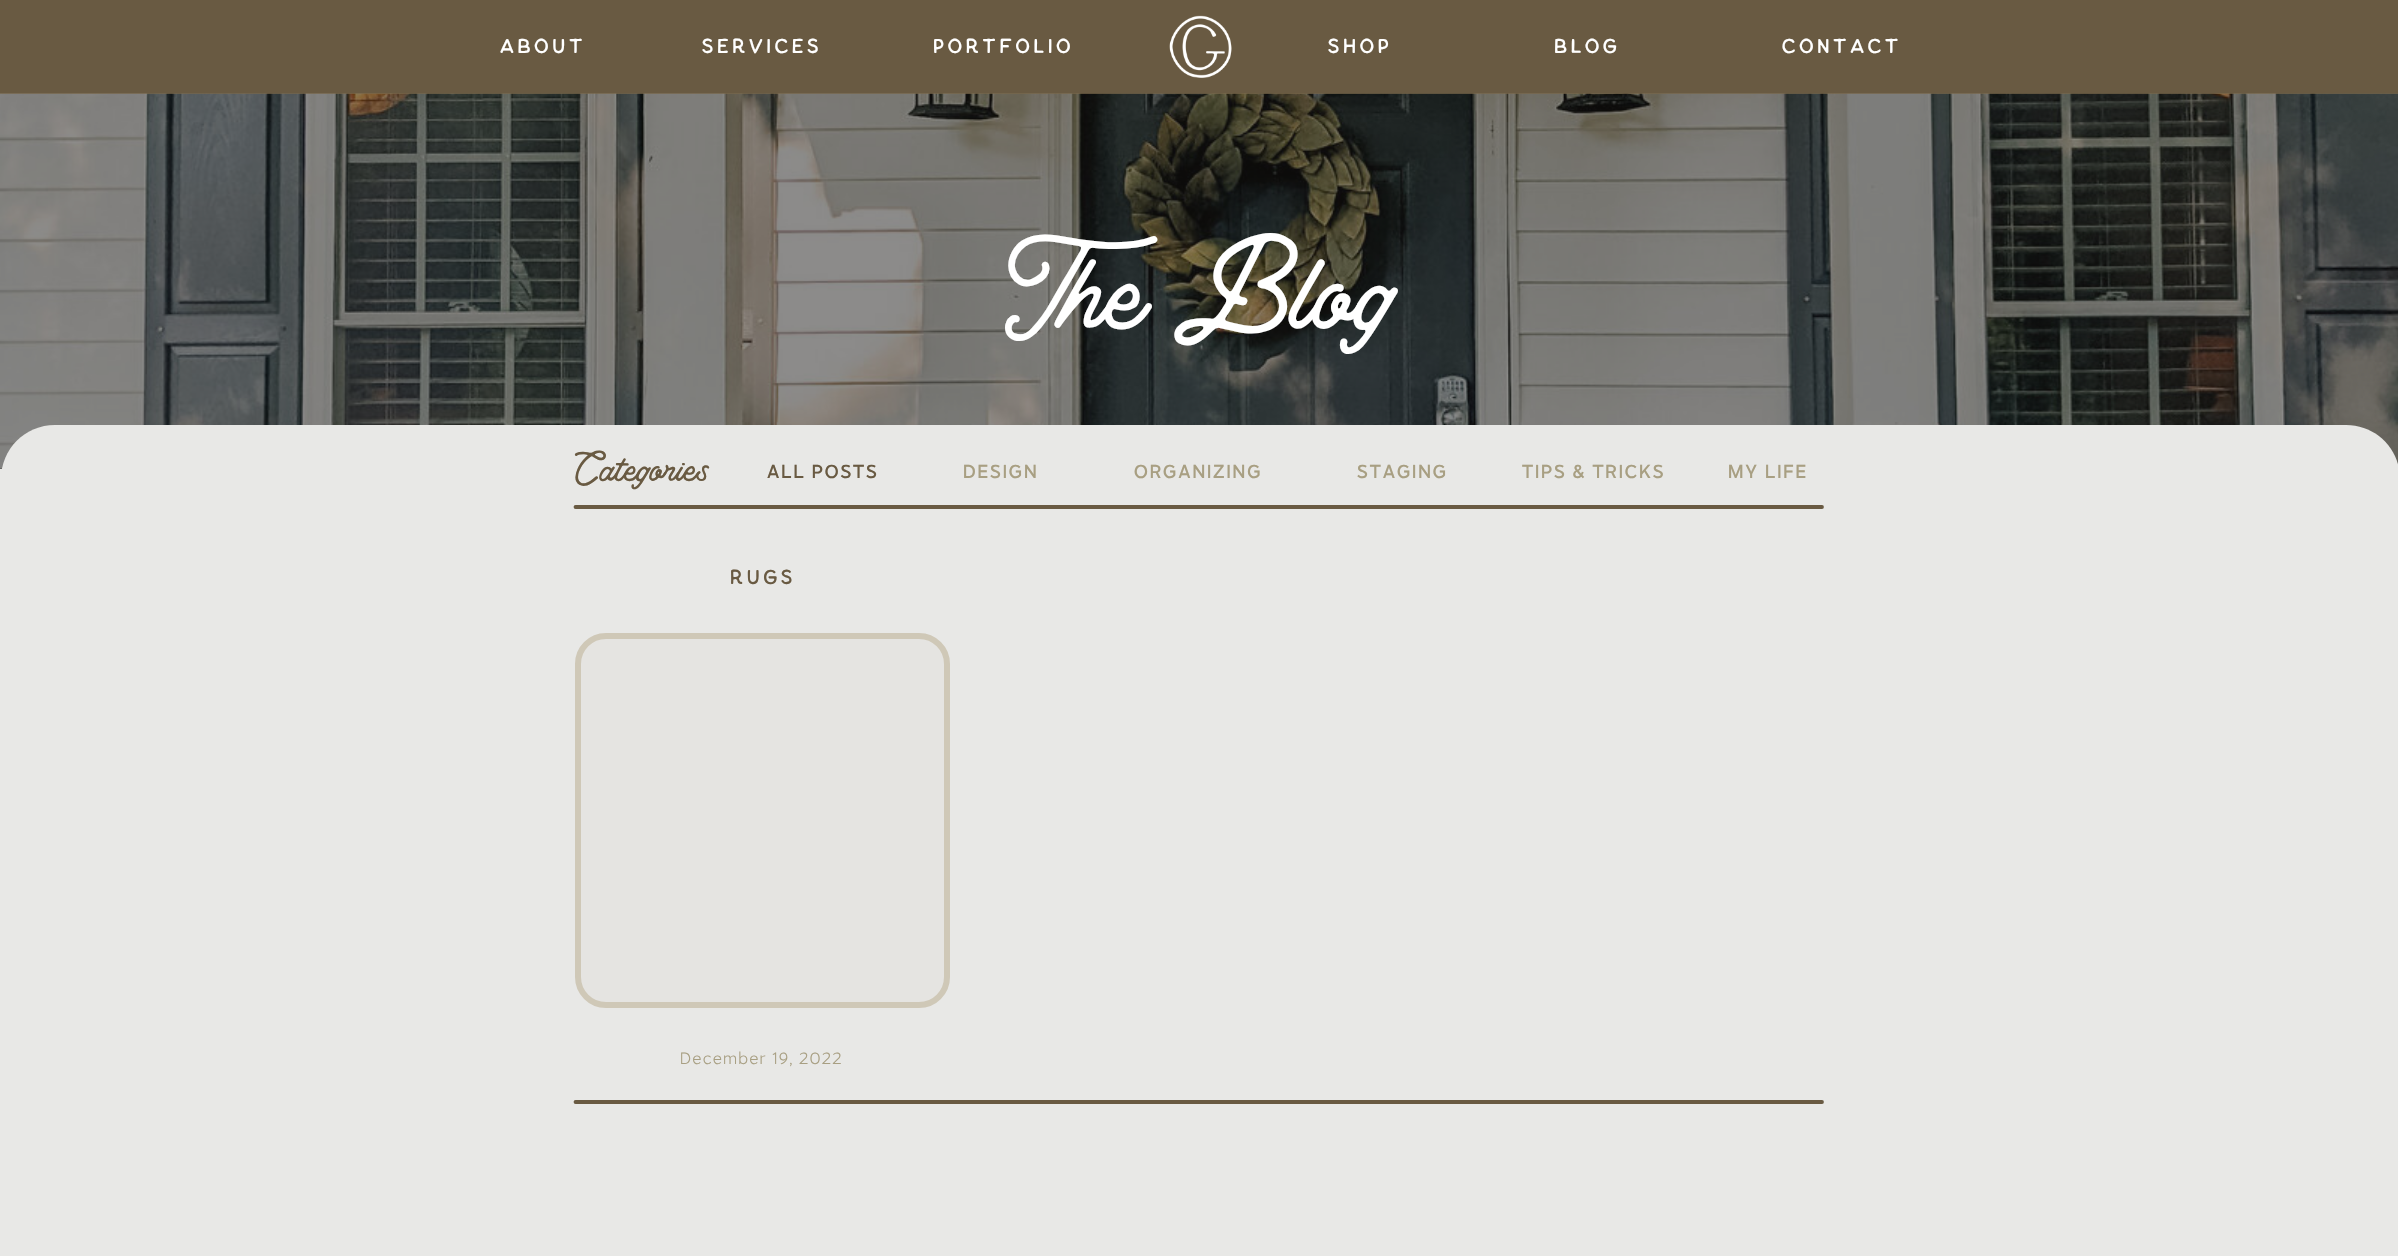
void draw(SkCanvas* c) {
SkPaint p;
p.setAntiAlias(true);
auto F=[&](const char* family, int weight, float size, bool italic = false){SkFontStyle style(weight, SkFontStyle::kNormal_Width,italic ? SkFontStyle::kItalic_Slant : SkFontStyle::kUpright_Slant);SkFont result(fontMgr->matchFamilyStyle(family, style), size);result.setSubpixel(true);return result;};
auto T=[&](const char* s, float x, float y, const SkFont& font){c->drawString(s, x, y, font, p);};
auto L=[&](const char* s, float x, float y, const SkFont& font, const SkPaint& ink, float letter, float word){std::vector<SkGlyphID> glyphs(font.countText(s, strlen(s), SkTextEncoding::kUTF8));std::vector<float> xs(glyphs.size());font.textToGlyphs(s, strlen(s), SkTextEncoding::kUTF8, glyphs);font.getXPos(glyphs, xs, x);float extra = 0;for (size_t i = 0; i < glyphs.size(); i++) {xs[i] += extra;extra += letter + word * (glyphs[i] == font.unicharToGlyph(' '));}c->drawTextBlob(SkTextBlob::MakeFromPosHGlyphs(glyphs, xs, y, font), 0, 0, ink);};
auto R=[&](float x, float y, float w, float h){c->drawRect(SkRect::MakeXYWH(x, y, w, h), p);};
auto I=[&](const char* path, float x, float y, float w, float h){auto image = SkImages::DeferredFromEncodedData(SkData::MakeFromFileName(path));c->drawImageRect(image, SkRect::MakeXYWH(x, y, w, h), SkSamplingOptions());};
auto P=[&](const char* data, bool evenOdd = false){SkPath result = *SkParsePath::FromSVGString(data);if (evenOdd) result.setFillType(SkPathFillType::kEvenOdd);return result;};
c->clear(0xff695a42);
auto f1 = F("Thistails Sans",400,18.75);
p.setColor(0xffffffff);
L("About",499,53,f1,p,1.9,0);
L("services",701,53,f1,p,1.9,0);
L("portfolio",932,53,f1,p,1.9,0);
I("1.png",1169,15,63,63);
L("Shop",1327,53,f1,p,1.9,0);
L("Blog",1553,53,f1,p,1.9,0);
L("contact",1781,53,f1,p,1.9,0);
p.setColor(0xff171614);
R(0,94,2398,375);
I("2.png",0,93,2398,376);
auto f2 = F("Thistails",400,93.75);
p.setColor(0xffffffff);
T("The Blog",1002,329,f2);
p.setColor(0xffe8e8e6);
R(0,469,2,37);
c->drawPath(P("M55 425h2291c30 0 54 24 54 54v27h-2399v-27c0-30 24-54 54-54z"),p);
auto f3 = F("Thistails",400,31.25);
p.setColor(0xff695a42);
T("Categories",574,481,f3);
auto f4 = F("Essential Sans",600,18.75);
L("ALL POSTS",767,478,f4,p,1.9,0);
p.setColor(0xffa89f82);
L("DESIGN",963,478,f4,p,1.9,0);
L("ORGANIZING",1134,478,f4,p,1.9,0);
L("STAGING",1357,478,f4,p,1.9,0);
L("TIPS & TRICKS",1522,478,f4,p,1.9,0);
L("MY LIFE",1728,478,f4,p,1.9,0);
p.setColor(0xffe8e8e6);
R(0,506,2398,750);
p.setStroke(true);
p.setStrokeWidth(3.8);
p.setStrokeCap(SkPaint::kRound_Cap);
p.setColor(0xff695a42);
c->drawPath(P("M575.5 507h1246.5"),p);
p.setStroke(false);
L("Rugs",729,584,f1,p,1.9,0);
p.setColor(0xffe5e4e1);
c->drawRoundRect(SkRect::MakeXYWH(578,636,369,369),28,28,p);
p.setStroke(true);
p.setStrokeWidth(6);
p.setStrokeCap(SkPaint::kButt_Cap);
p.setColor(0xffcfc8b7);
c->drawRoundRect(SkRect::MakeXYWH(578,636,369,369),28,28,p);
auto f5 = F("Essential Sans",400,16.25);
p.setStroke(false);
p.setColor(0xffa89f82);
L("December 19, 2022",680,1064,f5,p,1.6,0);
p.setStroke(true);
p.setStrokeWidth(3.8);
p.setStrokeCap(SkPaint::kRound_Cap);
p.setColor(0xff695a42);
c->drawPath(P("M575.5 1102h1246.5"),p);
}
